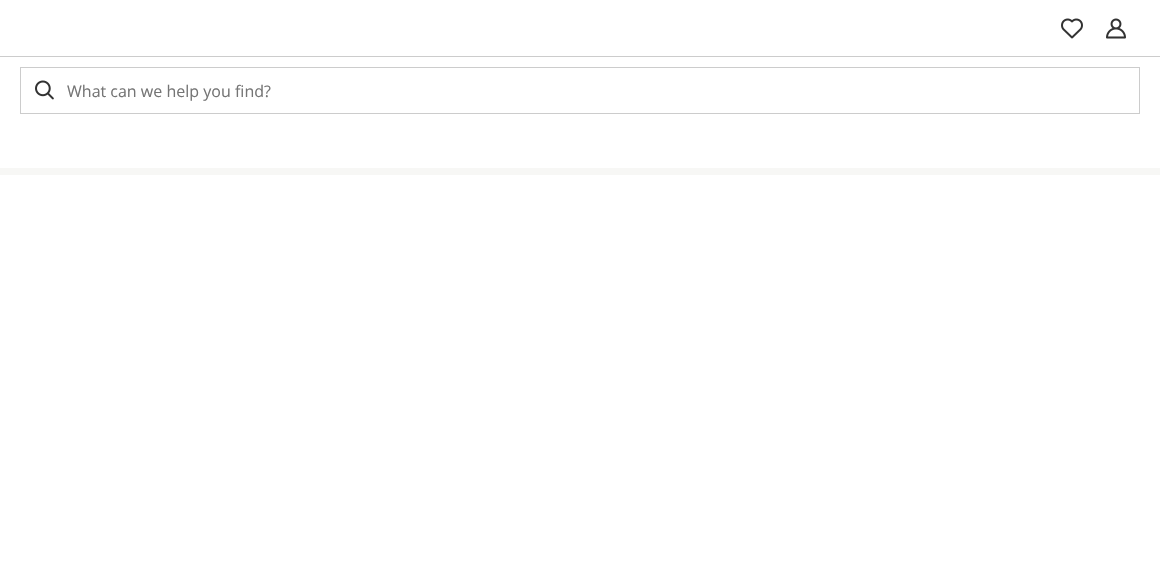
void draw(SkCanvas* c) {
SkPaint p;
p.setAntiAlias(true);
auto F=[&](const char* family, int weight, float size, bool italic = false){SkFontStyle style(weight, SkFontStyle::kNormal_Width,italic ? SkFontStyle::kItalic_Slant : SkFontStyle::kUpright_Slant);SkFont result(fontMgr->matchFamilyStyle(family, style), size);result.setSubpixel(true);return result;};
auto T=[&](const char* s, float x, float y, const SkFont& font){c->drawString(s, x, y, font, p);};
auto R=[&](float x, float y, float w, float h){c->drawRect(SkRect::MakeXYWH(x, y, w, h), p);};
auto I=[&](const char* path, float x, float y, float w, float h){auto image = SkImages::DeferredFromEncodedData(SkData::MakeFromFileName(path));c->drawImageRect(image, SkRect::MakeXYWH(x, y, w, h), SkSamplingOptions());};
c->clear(0xffffffff);
p.setColor(0xffcccccc);
R(0,56,1160,1);
I("1.png",1061,18,22,21);
I("2.png",1106,18,20,21);
p.setStroke(true);
p.setStrokeWidth(1);
c->drawRect(SkRect::MakeXYWH(20.5,67.5,1119,46),p);
I("3.png",35,80,19,20);
auto f1 = F("Open Sans",400,16);
p.setStroke(false);
p.setColor(0xff757575);
T("What can we help you find?",67,97,f1);
p.setColor(0xfff7f7f5);
R(0,168,1160,7);
}
